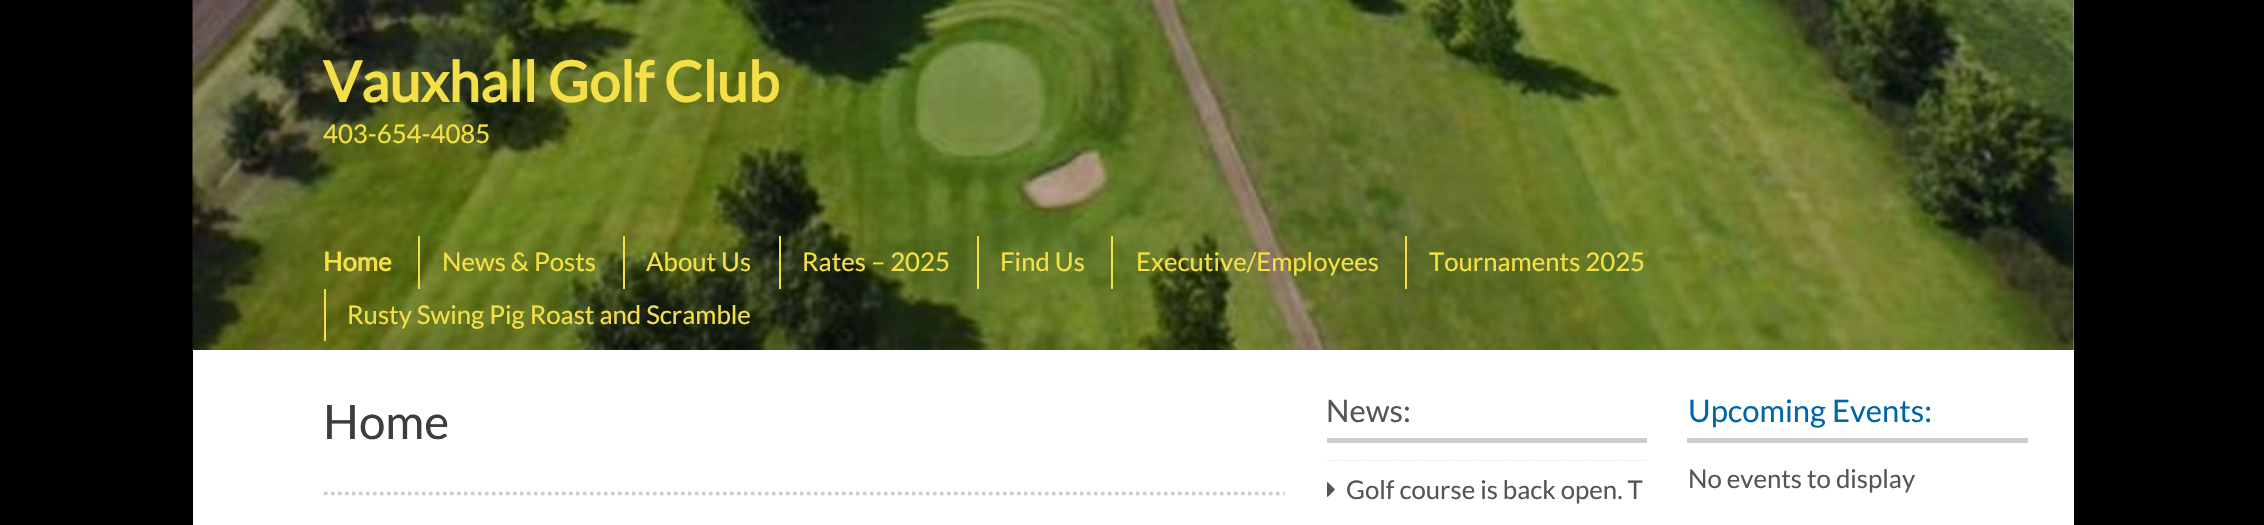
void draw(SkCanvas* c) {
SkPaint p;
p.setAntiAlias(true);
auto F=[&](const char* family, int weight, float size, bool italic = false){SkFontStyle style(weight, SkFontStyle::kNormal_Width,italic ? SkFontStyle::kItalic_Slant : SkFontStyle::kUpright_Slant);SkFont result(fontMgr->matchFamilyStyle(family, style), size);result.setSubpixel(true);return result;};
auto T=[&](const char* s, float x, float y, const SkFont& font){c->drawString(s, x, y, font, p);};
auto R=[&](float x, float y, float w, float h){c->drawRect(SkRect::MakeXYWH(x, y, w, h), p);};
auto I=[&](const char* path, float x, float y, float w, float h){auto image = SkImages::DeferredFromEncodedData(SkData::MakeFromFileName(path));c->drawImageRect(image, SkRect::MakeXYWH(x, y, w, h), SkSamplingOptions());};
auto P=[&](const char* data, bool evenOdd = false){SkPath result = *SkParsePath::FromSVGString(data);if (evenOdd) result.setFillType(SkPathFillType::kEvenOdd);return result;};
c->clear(0xff000000);
p.setColor(0xffffffff);
R(193,0,1881,525);
I("1.png",192,0,1882,350);
auto f1 = F("Lato",700,56);
p.setColor(0xfff4e046);
T("Vauxhall Golf Club",323,102,f1);
auto f2 = F("Lato",400,25.75);
T("403-654-4085",323,143,f2);
auto f3 = F("Lato",700,25.75);
T("Home",323,271,f3);
R(418,236,2,53);
T("News & Posts",442,271,f2);
R(623,236,2,53);
T("About Us",646,271,f2);
R(779,236,2,53);
T("Rates – 2025",802,271,f2);
R(977,236,2,53);
T("Find Us",1000,271,f2);
R(1111,236,2,53);
T("Executive/Employees",1136,271,f2);
R(1405,236,2,53);
T("Tournaments 2025",1429,271,f2);
R(324,289,2,52);
T("Rusty Swing Pig Roast and Scramble",347,324,f2);
p.setStroke(true);
p.setStrokeWidth(3.5);
p.setColor(0xffcccccc);
p.setPathEffect(SkDashPathEffect::Make({{3.5f,3.5f}}, 0));
c->drawPath(P("M324 493.5h960.5"),p);
p.setPathEffect(nullptr);
auto f4 = F("Lato",400,47.5);
p.setStroke(false);
p.setColor(0xff3d3d3d);
T("Home",323,439,f4);
p.setColor(0xffcccccc);
R(1327,438,320,5);
auto f5 = F("Lato",400,31);
p.setColor(0xff555555);
T("News:",1326,422,f5);
c->save();
c->clipRect(SkRect::MakeXYWH(1327,460,320,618));
p.setStroke(true);
p.setStrokeWidth(1.8);
p.setColor(0xffcccccc);
p.setPathEffect(SkDashPathEffect::Make({{1.75f,1.75f}}, 0));
c->drawPath(P("M1326.5 459.5h320.5"),p);
p.setPathEffect(nullptr);
c->restore();
I("2.png",1327,482,8,15);
p.setStroke(false);
p.setColor(0xff555555);
T("Golf course is back open. T",1346,499,f2);
p.setColor(0xffcccccc);
R(1687,438,341,5);
p.setColor(0xff0066aa);
T("Upcoming Events:",1688,422,f5);
p.setColor(0xff555555);
T("No events to display",1688,488,f2);
}
